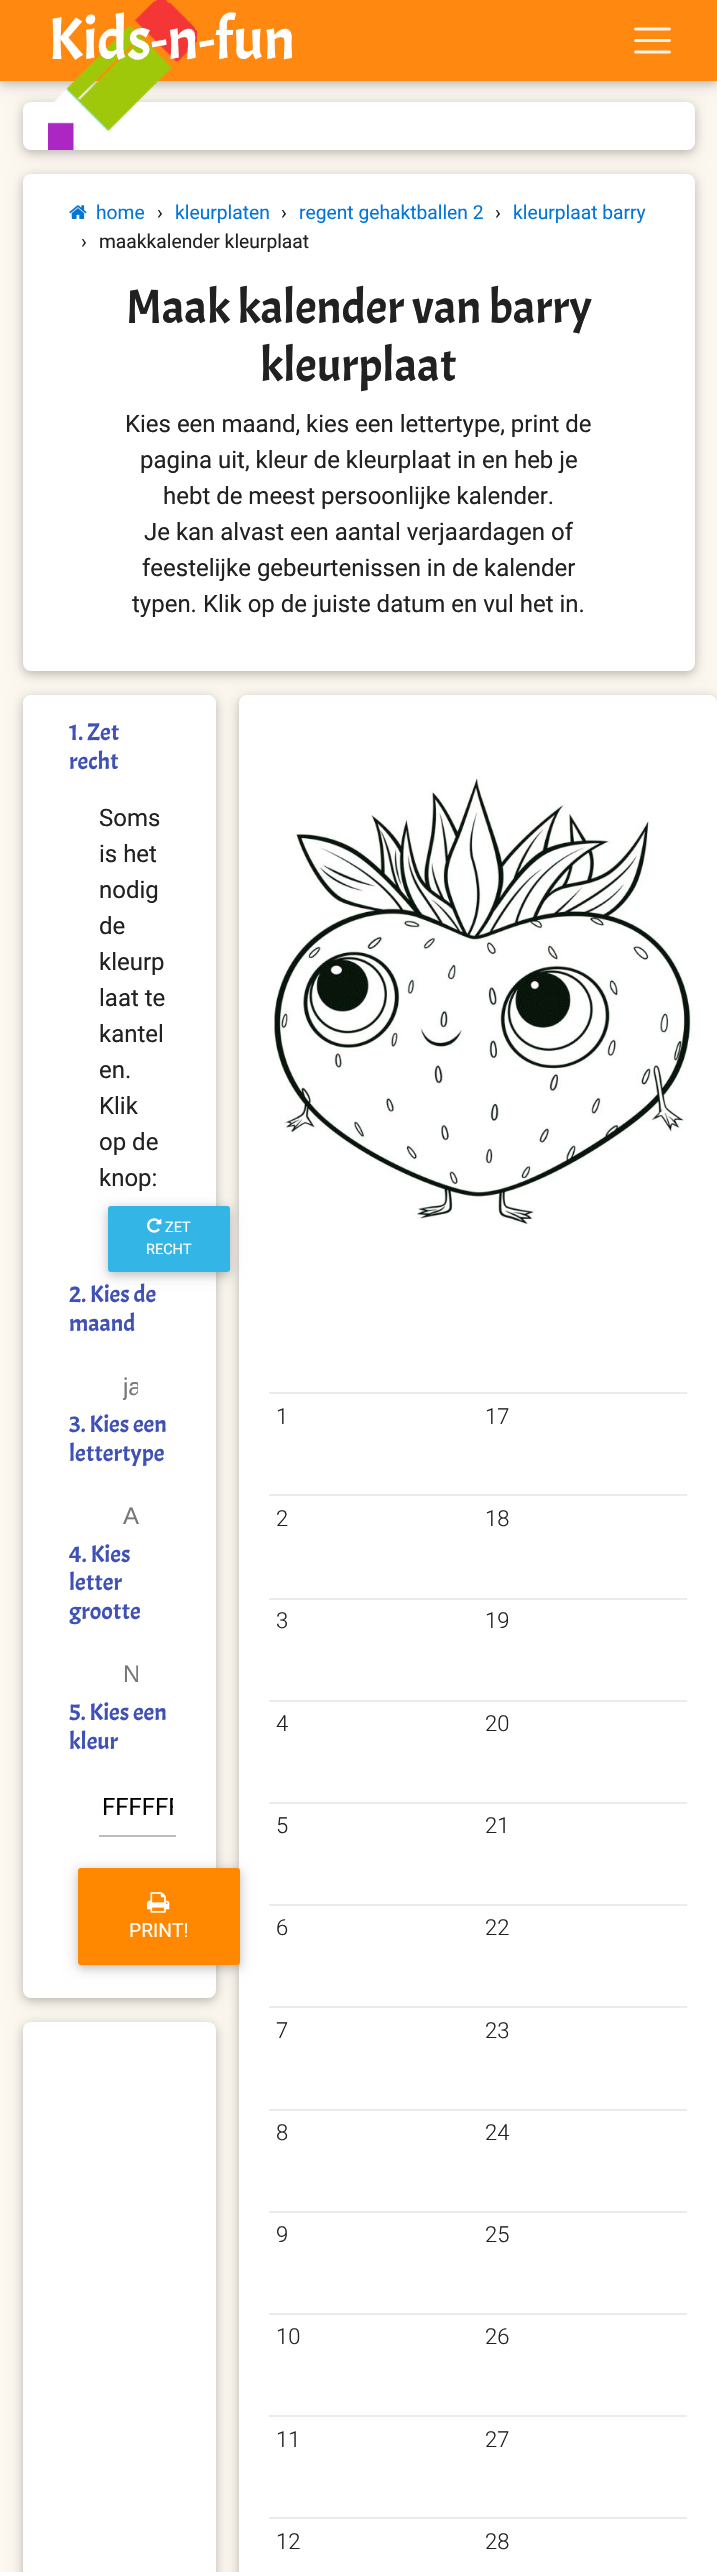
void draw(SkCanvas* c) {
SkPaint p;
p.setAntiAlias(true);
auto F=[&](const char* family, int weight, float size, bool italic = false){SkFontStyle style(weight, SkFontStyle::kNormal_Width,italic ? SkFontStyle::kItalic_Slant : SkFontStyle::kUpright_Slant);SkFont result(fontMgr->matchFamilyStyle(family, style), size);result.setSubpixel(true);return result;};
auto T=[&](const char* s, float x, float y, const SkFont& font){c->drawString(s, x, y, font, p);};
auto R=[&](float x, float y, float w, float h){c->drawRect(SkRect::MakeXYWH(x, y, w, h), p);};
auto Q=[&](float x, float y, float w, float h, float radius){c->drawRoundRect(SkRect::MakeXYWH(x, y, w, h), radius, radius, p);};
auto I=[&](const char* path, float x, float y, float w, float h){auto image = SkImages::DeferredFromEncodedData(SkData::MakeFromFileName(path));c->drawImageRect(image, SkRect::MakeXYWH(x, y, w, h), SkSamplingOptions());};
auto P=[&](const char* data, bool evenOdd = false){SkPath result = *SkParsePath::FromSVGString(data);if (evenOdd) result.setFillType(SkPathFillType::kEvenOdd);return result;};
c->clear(0xfffcf7ef);
p.setColor(0x1f000000);
p.setMaskFilter(SkMaskFilter::MakeBlur(kNormal_SkBlurStyle, 7.5));
c->drawRoundRect(SkRect::MakeXYWH(23,105,672,48),8,8,p);
p.setMaskFilter(nullptr);
p.setColor(0x29000000);
p.setMaskFilter(SkMaskFilter::MakeBlur(kNormal_SkBlurStyle, 4));
c->drawRoundRect(SkRect::MakeXYWH(23,105,672,48),8,8,p);
p.setMaskFilter(nullptr);
p.setColor(0xffffffff);
Q(23,102,672,48,8);
p.setColor(0x1f000000);
p.setMaskFilter(SkMaskFilter::MakeBlur(kNormal_SkBlurStyle, 7.5));
c->drawRect(SkRect::MakeXYWH(0,3,717,81),p);
p.setMaskFilter(nullptr);
p.setColor(0x29000000);
p.setMaskFilter(SkMaskFilter::MakeBlur(kNormal_SkBlurStyle, 4));
c->drawRect(SkRect::MakeXYWH(0,3,717,81),p);
p.setMaskFilter(nullptr);
p.setColor(0xffff8910);
R(0,0,717,81);
I("1.png",48,0,149,150);
auto f1 = F("Acme",400,60);
p.setColor(0xffffffff);
T("Kids-n-fun",48,59,f1);
p.setStroke(true);
p.setStrokeWidth(2.8);
p.setStrokeCap(SkPaint::kRound_Cap);
p.setColor(0xfffff3e7);
c->drawPath(P("M635.5 29h34m-34 11.5h34m-34 11.5h34"),p);
p.setStroke(false);
p.setColor(0x1f000000);
p.setMaskFilter(SkMaskFilter::MakeBlur(kNormal_SkBlurStyle, 7.5));
c->drawRoundRect(SkRect::MakeXYWH(23,177,672,497),8,8,p);
p.setMaskFilter(nullptr);
p.setColor(0x29000000);
p.setMaskFilter(SkMaskFilter::MakeBlur(kNormal_SkBlurStyle, 4));
c->drawRoundRect(SkRect::MakeXYWH(23,177,672,497),8,8,p);
p.setMaskFilter(nullptr);
p.setColor(0xffffffff);
Q(23,174,672,497,8);
I("2.png",69,205,18,14);
auto f2 = F("Roboto",400,19.25);
p.setColor(0xff0275d8);
T("home",96,219,f2);
p.setColor(0xff212121);
T("›",157,219,f2);
p.setColor(0xff0275d8);
T("kleurplaten",175,219,f2);
p.setColor(0xff212121);
T("›",281,219,f2);
p.setColor(0xff0275d8);
T("regent gehaktballen 2",299,219,f2);
p.setColor(0xff212121);
T("›",495,219,f2);
p.setColor(0xff0275d8);
T("kleurplaat barry",513,219,f2);
p.setColor(0xff212121);
T("›",81,248,f2);
T("maakkalender kleurplaat",99,248,f2);
auto f3 = F("Acme",400,48);
T("Maak kalender van barry",126,323,f3);
T("kleurplaat",260,381,f3);
auto f4 = F("Roboto",400,24);
T("Kies een maand, kies een lettertype, print de",125,432,f4);
T("pagina uit, kleur de kleurplaat in en heb je",140,468,f4);
T("hebt de meest persoonlijke kalender.",163,504,f4);
T("Je kan alvast een aantal verjaardagen of",144,540,f4);
T("feestelijke gebeurtenissen in de kalender",142,576,f4);
T("typen. Klik op de juiste datum en vul het in.",132,612,f4);
p.setColor(0x1f000000);
p.setMaskFilter(SkMaskFilter::MakeBlur(kNormal_SkBlurStyle, 7.5));
c->drawRoundRect(SkRect::MakeXYWH(23,698,193,1303),8,8,p);
p.setMaskFilter(nullptr);
p.setColor(0x29000000);
p.setMaskFilter(SkMaskFilter::MakeBlur(kNormal_SkBlurStyle, 4));
c->drawRoundRect(SkRect::MakeXYWH(23,698,193,1303),8,8,p);
p.setMaskFilter(nullptr);
p.setColor(0xffffffff);
Q(23,695,193,1303,8);
auto f5 = F("Acme",400,24);
p.setColor(0xff3f51b5);
T("1. Zet",69,740,f5);
T("recht",69,769,f5);
p.setColor(0xff212121);
T("Soms",99,826,f4);
T("is het",99,862,f4);
T("nodig",99,898,f4);
T("de",99,934,f4);
T("kleurp",99,970,f4);
T("laat te",99,1006,f4);
T("kantel",99,1042,f4);
T("en.",99,1078,f4);
T("Klik",99,1114,f4);
T("op de",99,1150,f4);
T("knop:",99,1186,f4);
p.setColor(0x1f000000);
p.setMaskFilter(SkMaskFilter::MakeBlur(kNormal_SkBlurStyle, 7.5));
c->drawRoundRect(SkRect::MakeXYWH(23,2025,193,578),8,8,p);
p.setMaskFilter(nullptr);
p.setColor(0x29000000);
p.setMaskFilter(SkMaskFilter::MakeBlur(kNormal_SkBlurStyle, 4));
c->drawRoundRect(SkRect::MakeXYWH(23,2025,193,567),8,8,p);
p.setMaskFilter(nullptr);
p.setColor(0xffffffff);
Q(23,2022,193,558,8);
p.setColor(0x1f000000);
p.setMaskFilter(SkMaskFilter::MakeBlur(kNormal_SkBlurStyle, 7.5));
c->drawRoundRect(SkRect::MakeXYWH(239,698,478,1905),8,8,p);
p.setMaskFilter(nullptr);
p.setColor(0x29000000);
p.setMaskFilter(SkMaskFilter::MakeBlur(kNormal_SkBlurStyle, 4));
c->drawRoundRect(SkRect::MakeXYWH(239,698,478,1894),8,8,p);
p.setMaskFilter(nullptr);
p.setColor(0xffffffff);
Q(239,695,478,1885,8);
p.setColor(0x1f000000);
p.setMaskFilter(SkMaskFilter::MakeBlur(kNormal_SkBlurStyle, 7.5));
c->drawRoundRect(SkRect::MakeXYWH(108,1209,122,66),3,3,p);
p.setMaskFilter(nullptr);
p.setColor(0x29000000);
p.setMaskFilter(SkMaskFilter::MakeBlur(kNormal_SkBlurStyle, 4));
c->drawRoundRect(SkRect::MakeXYWH(108,1209,122,66),3,3,p);
p.setMaskFilter(nullptr);
p.setColor(0xff33b5e5);
Q(108,1206,122,66,3);
I("3.png",147,1218,15,15);
auto f6 = F("Roboto",400,14.5);
p.setColor(0xffffffff);
T("ZET",165,1232,f6);
T("RECHT",146,1254,f6);
p.setColor(0xff3f51b5);
T("2. Kies de",69,1302,f5);
T("maand",69,1331,f5);
c->save();
c->clipRect(SkRect::MakeXYWH(123,1370,15,36));
auto f7 = F("Liberation Sans",400,24);
p.setColor(0xff777777);
T("ja",123,1395,f7);
c->restore();
p.setColor(0xff3f51b5);
T("3. Kies een",69,1432,f5);
T("lettertype",69,1461,f5);
p.setColor(0xff777777);
T("A",123,1524,f7);
p.setColor(0xff3f51b5);
T("4. Kies",69,1562,f5);
T("letter",69,1590,f5);
T("grootte",69,1619,f5);
c->save();
c->clipRect(SkRect::MakeXYWH(123,1658,15,36));
p.setColor(0xff777777);
T("N",123,1682,f7);
c->restore();
p.setColor(0xff3f51b5);
T("5. Kies een",69,1720,f5);
T("kleur",69,1749,f5);
p.setColor(0xffbdbdbd);
R(99,1835,77,2);
c->save();
c->clipRect(SkRect::MakeXYWH(102,1793,71,28));
p.setColor(0xff000000);
T("FFFFFF",102,1815,f4);
c->restore();
p.setColor(0x1f000000);
p.setMaskFilter(SkMaskFilter::MakeBlur(kNormal_SkBlurStyle, 7.5));
c->drawRoundRect(SkRect::MakeXYWH(78,1871,162,97),3,3,p);
p.setMaskFilter(nullptr);
p.setColor(0x29000000);
p.setMaskFilter(SkMaskFilter::MakeBlur(kNormal_SkBlurStyle, 4));
c->drawRoundRect(SkRect::MakeXYWH(78,1871,162,97),3,3,p);
p.setMaskFilter(nullptr);
p.setColor(0xffff8800);
Q(78,1868,162,97,3);
I("4.png",147,1892,23,21);
p.setColor(0xffffffff);
T("PRINT!",129,1937,f2);
I("5.png",274,776,420,449);
auto f8 = F("Roboto",300,22);
p.setColor(0xff212121);
T("1",276,1424,f8);
p.setColor(0xffe9ecef);
R(269,1392,418,2);
p.setColor(0xff212121);
T("17",485,1424,f8);
T("2",276,1526,f8);
p.setColor(0xffe9ecef);
R(269,1494,418,2);
p.setColor(0xff212121);
T("18",485,1526,f8);
T("3",276,1628,f8);
p.setColor(0xffe9ecef);
R(269,1598,418,2);
p.setColor(0xff212121);
T("19",485,1628,f8);
T("4",276,1731,f8);
p.setColor(0xffe9ecef);
R(269,1700,418,2);
p.setColor(0xff212121);
T("20",485,1731,f8);
T("5",276,1833,f8);
p.setColor(0xffe9ecef);
R(269,1802,418,2);
p.setColor(0xff212121);
T("21",485,1833,f8);
T("6",276,1935,f8);
p.setColor(0xffe9ecef);
R(269,1904,418,2);
p.setColor(0xff212121);
T("22",485,1935,f8);
T("7",276,2038,f8);
p.setColor(0xffe9ecef);
R(269,2006,418,2);
p.setColor(0xff212121);
T("23",485,2038,f8);
T("8",276,2140,f8);
p.setColor(0xffe9ecef);
R(269,2109,418,2);
p.setColor(0xff212121);
T("24",485,2140,f8);
T("9",276,2242,f8);
p.setColor(0xffe9ecef);
R(269,2211,418,2);
p.setColor(0xff212121);
T("25",485,2242,f8);
T("10",276,2344,f8);
p.setColor(0xffe9ecef);
R(269,2313,418,2);
p.setColor(0xff212121);
T("26",485,2344,f8);
T("11",276,2447,f8);
p.setColor(0xffe9ecef);
R(269,2415,418,2);
p.setColor(0xff212121);
T("27",485,2447,f8);
T("12",276,2549,f8);
p.setColor(0xffe9ecef);
R(269,2517,418,2);
p.setColor(0xff212121);
T("28",485,2549,f8);
}
